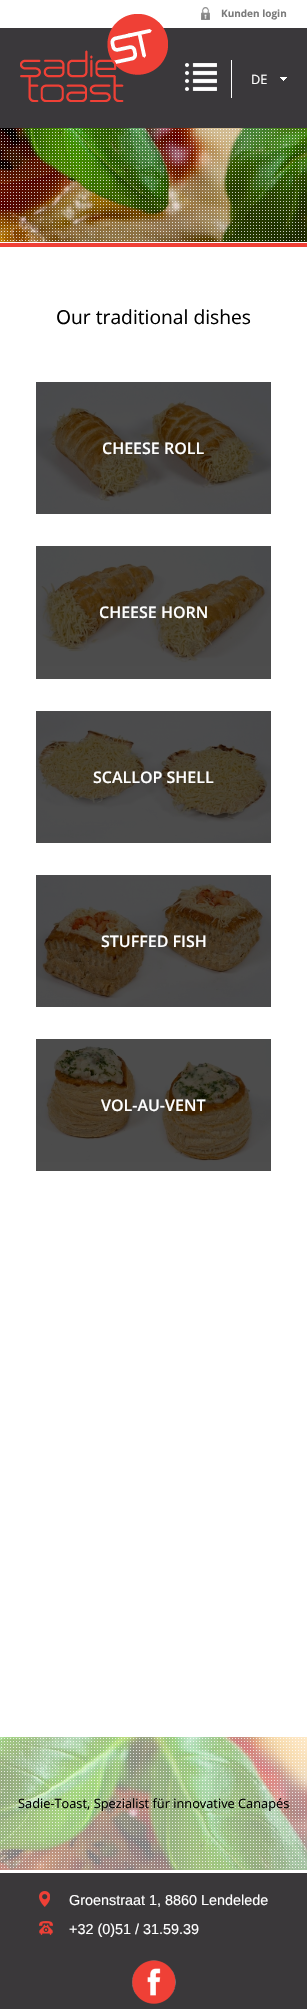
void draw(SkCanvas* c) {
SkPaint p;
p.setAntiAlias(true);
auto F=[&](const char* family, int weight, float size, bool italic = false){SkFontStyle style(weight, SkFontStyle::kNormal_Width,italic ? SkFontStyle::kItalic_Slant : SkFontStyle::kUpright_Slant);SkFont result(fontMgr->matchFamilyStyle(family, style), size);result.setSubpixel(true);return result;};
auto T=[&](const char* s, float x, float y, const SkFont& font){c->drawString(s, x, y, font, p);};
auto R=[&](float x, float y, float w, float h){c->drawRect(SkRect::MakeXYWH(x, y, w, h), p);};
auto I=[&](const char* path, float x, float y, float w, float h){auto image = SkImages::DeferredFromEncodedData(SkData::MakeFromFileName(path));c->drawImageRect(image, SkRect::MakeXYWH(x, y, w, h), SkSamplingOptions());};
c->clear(0xffffffff);
p.setColor(0xff4d4d4d);
R(36,1162,235,9);
R(36,666,235,13);
p.setColor(0xff3a383b);
R(0,28,307,100);
I("1.png",20,14,148,88);
I("2.png",185,63,32,28);
I("3.png",201,7,9,13);
auto f1 = F("Open Sans",700,10);
p.setColor(0xff7a7a7a);
T("Kunden login",221,17,f1);
I("4.png",280,77,7,4);
p.setColor(0xffffffff);
R(231,60,1,38);
auto f2 = F("Open Sans",400,12.8);
T("DE",251,84,f2);
I("5.png",0,128,307,114);
I("6.png",1,129,304,112);
p.setColor(0xffef4036);
R(0,243,307,4);
auto f3 = F("Noto Sans",400,19.25);
p.setColor(0xff000000);
T("O",56,324,f3);
auto f4 = F("Open Sans",400,19.25);
T("ur traditional dishes",71,324,f4);
I("7.png",36,382,235,132);
auto f5 = F("Open Sans",600,16);
p.setColor(0xffffffff);
T("CHEESE ROLL",102,454,f5);
I("8.png",36,546,235,120);
T("CHEESE HORN",99,618,f5);
I("9.png",36,711,235,132);
T("SCALLOP SHELL",93,783,f5);
I("10.png",36,875,235,132);
T("STUFFED FISH",101,947,f5);
I("11.png",36,1039,235,123);
T("VOL-AU-VENT",101,1111,f5);
p.setColor(0xff3a383a);
R(0,1873,307,136);
I("12.png",0,1737,307,133);
I("13.png",0,1737,307,133);
p.setColor(0xff000000);
T("Sadie-Toast, Spezialist für innovative Canapés",18,1808,f2);
I("14.png",39,1891,11,16);
auto f6 = F("Liberation Sans",400,14.4);
p.setColor(0xffffffff);
T("Groenstraat 1, 8860 Lendelede",69,1905,f6);
I("15.png",39,1921,14,14);
T("+32 (0)51 / 31.59.39",69,1934,f6);
I("16.png",132,1960,44,44);
}
